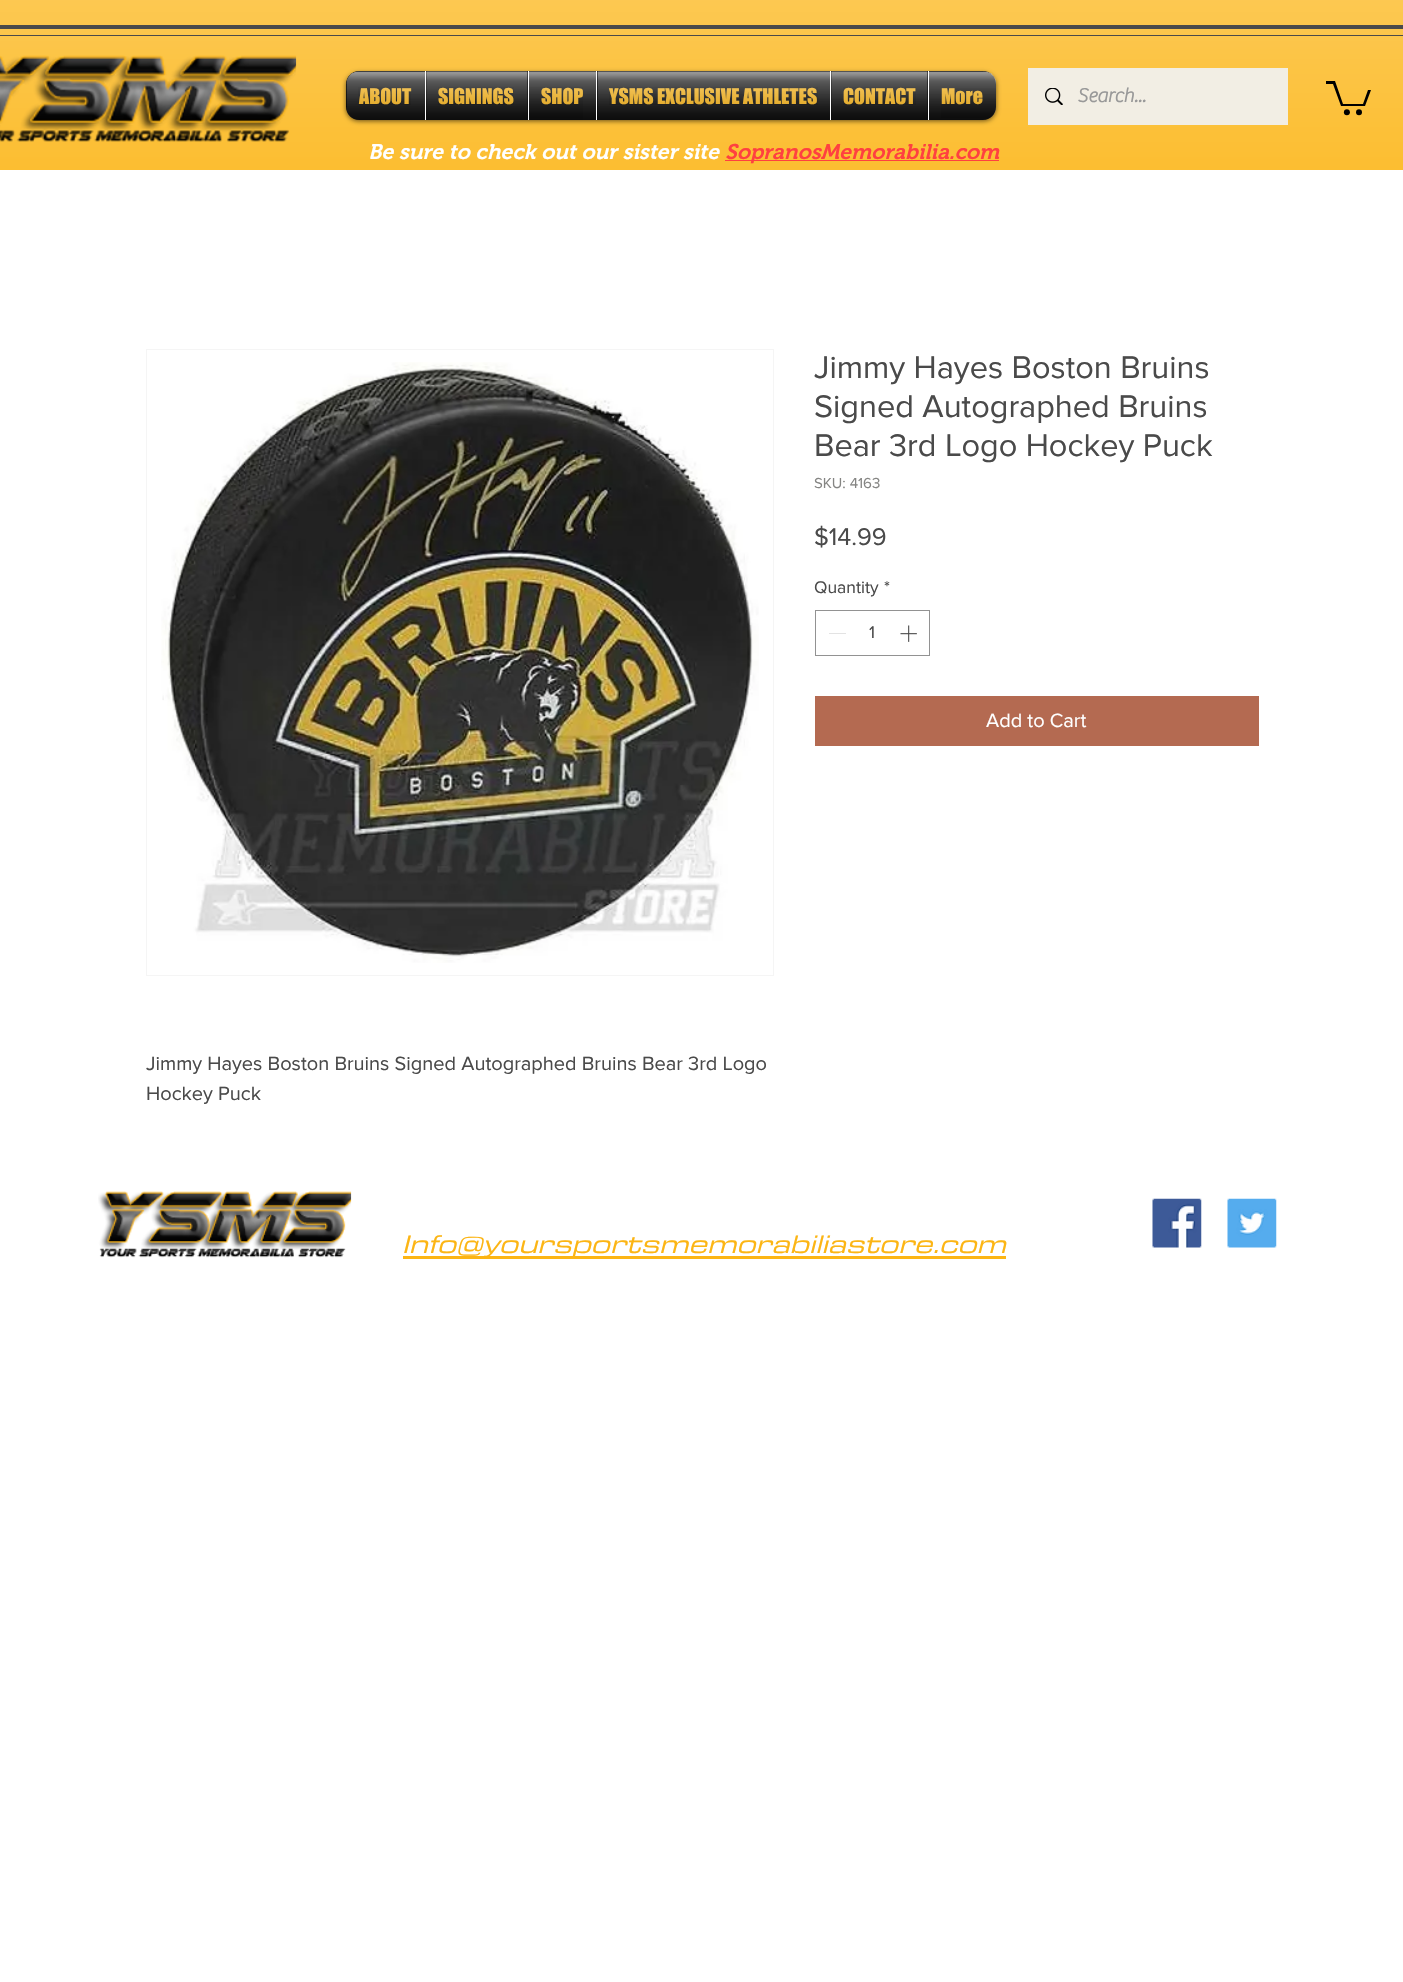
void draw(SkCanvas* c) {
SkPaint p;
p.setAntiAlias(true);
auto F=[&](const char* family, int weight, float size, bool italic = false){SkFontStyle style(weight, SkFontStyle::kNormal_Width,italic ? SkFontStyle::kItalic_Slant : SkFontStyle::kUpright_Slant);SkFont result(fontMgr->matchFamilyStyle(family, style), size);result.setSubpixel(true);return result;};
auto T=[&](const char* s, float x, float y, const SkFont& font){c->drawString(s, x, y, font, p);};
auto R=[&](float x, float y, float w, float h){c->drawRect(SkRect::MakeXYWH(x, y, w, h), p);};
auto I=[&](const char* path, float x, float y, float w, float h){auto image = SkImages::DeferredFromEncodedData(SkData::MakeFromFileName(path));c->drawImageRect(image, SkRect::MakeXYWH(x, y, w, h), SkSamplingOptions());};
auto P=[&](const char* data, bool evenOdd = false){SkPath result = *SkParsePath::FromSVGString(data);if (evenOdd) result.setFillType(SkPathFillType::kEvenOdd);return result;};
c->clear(0xffffffff);
p.setColor(0xfffcb514);
R(0,0,1403,170);
I("1.png",0,0,1403,170);
p.setColor(0xff4a4a4a);
R(0,25,1403,4);
R(0,35,1403,1);
I("2.png",0,55,297,87);
p.setColor(0x99000000);
p.setMaskFilter(SkMaskFilter::MakeBlur(kNormal_SkBlurStyle, 2.5));
c->drawRoundRect(SkRect::MakeXYWH(346,73,650,48),13,13,p);
p.setMaskFilter(nullptr);
I("3.png",346,71,650,49);
I("4.png",349,107,647,13);
p.setColor(0xff000000);
c->drawPath(P("M359 71h66v49h-66c-7 0-13-6-13-13v-23c0-7 6-13 13-13z"),p);
auto f1 = F("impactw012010",400,20);
p.setColor(0xfffcb514);
T("ABOUT",359,104,f1);
I("5.png",346,71,79,49);
I("6.png",358,87,53,18);
p.setColor(0xff000000);
R(426,71,102,49);
p.setColor(0xffffffff);
R(425,71,1,49);
p.setColor(0xfffcb514);
T("SIGNINGS",438,104,f1);
I("7.png",426,71,102,49);
I("8.png",438,87,76,18);
p.setColor(0xff000000);
R(529,71,67,49);
p.setColor(0xffffffff);
R(528,71,1,49);
p.setColor(0xfffcb514);
T("SHOP",541,104,f1);
I("9.png",529,71,67,49);
I("10.png",528,87,55,33);
p.setColor(0xff000000);
R(597,71,233,49);
p.setColor(0xffffffff);
R(596,71,1,49);
p.setColor(0xfffcb514);
T("YSMS EXCLUSIVE ATHLETES",609,104,f1);
I("11.png",597,71,233,49);
I("12.png",609,87,209,18);
p.setColor(0xff000000);
R(831,71,97,49);
p.setColor(0xffffffff);
R(830,71,1,49);
p.setColor(0xfffcb514);
T("CONTACT",843,104,f1);
I("13.png",831,71,97,49);
I("14.png",843,87,73,18);
p.setColor(0xff000000);
c->drawPath(P("M928 71h55c7 0 13 6 13 13v23c0 7-6 13-13 13h-55z"),p);
p.setColor(0xffffffff);
R(928,71,1,49);
p.setColor(0xfffcb514);
T("More",941,104,f1);
I("15.png",929,71,67,49);
I("16.png",941,88,55,30);
p.setColor(0xfff2eee4);
R(1028,68,260,57);
I("17.png",1045,88,18,17);
auto f2 = F("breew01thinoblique",700,20);
p.setColor(0xff999999);
T("Search...",1077,102,f2);
p.setColor(0xff000000);
c->drawPath(P("M1371 90l-6 16h-24l-8-22h-7v-3h9l8 23h20l5-14"),p);
c->drawCircle(1359,112.3,3,p);
c->drawCircle(1346.9,112.3,3,p);
auto f3 = F("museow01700",600,21.25,true);
p.setColor(0xffffffff);
T("Be sure to check out our sister site",368,159,f3);
p.setColor(0xffff4040);
R(725,160,274,1);
T("SopranosMemorabilia.com",725,159,f3);
auto f4 = F("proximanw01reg",400,32.5);
p.setColor(0xff4a4a4a);
T("Jimmy Hayes Boston Bruins",814,378,f4);
T("Signed Autographed Bruins",814,417,f4);
T("Bear 3rd Logo Hockey Puck",814,456,f4);
auto f5 = F("proximanw01reg",400,15);
p.setColor(0xff858583);
T("SKU: 4163",814,488,f5);
auto f6 = F("proximanw01reg",400,25);
p.setColor(0xff4a4a4a);
T("$14.99",814,545,f6);
auto f7 = F("proximanw01reg",400,17.5);
T("Quantity",814,593,f7);
T("*",884,593,f7);
p.setStroke(true);
p.setStrokeWidth(1);
p.setColor(0xff929292);
c->drawRect(SkRect::MakeXYWH(815.5,610.5,114,45),p);
p.setStroke(false);
p.setColor(0xffe3e3e3);
R(829,633,17,1);
p.setColor(0xff4a4a4a);
T("1",869,638,f7);
I("18.png",900,625,17,17);
p.setColor(0xffb46a51);
R(815,696,444,50);
auto f8 = F("proximanw01reg",400,20);
p.setColor(0xffffffff);
T("Add to Cart",986,727,f8);
p.setStroke(true);
p.setColor(0xfff5f5f5);
c->drawRect(SkRect::MakeXYWH(146.5,349.5,627,626),p);
I("19.png",161,362,598,601);
p.setStroke(false);
p.setColor(0xff4a4a4a);
T("Jimmy Hayes Boston Bruins Signed Autographed Bruins Bear 3rd Logo",146,1070,f8);
T("Hockey Puck",146,1100,f8);
I("20.png",98,1191,254,67);
p.setColor(0xfffcb514);
R(403,1256,603,3);
auto f9 = F("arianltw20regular",400,31.25,true);
T("Info@yoursportsmemorabiliastore.com",402,1253,f9);
I("21.png",1152,1198,50,50);
I("22.png",1227,1198,50,50);
}
